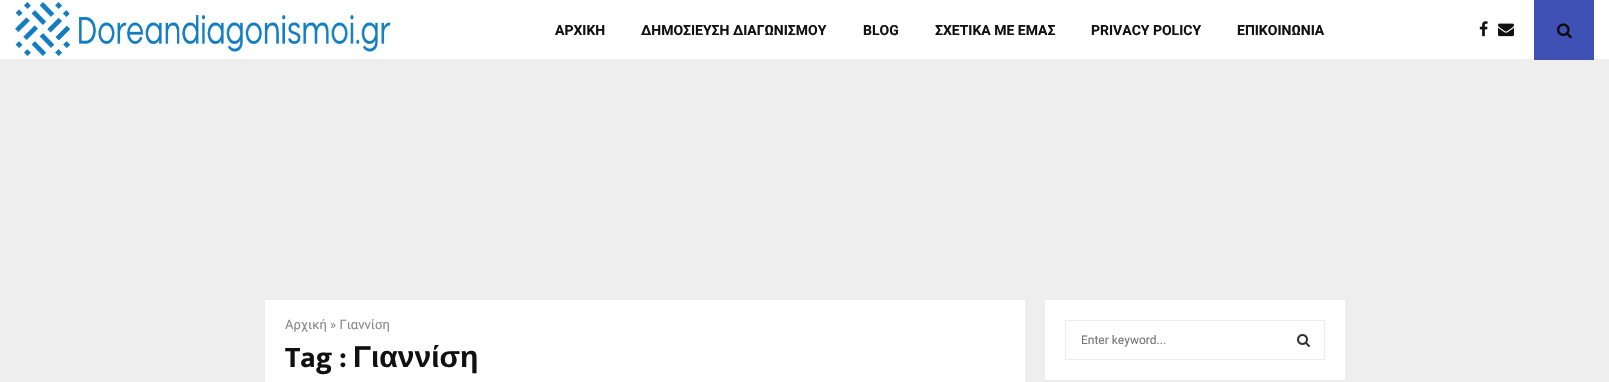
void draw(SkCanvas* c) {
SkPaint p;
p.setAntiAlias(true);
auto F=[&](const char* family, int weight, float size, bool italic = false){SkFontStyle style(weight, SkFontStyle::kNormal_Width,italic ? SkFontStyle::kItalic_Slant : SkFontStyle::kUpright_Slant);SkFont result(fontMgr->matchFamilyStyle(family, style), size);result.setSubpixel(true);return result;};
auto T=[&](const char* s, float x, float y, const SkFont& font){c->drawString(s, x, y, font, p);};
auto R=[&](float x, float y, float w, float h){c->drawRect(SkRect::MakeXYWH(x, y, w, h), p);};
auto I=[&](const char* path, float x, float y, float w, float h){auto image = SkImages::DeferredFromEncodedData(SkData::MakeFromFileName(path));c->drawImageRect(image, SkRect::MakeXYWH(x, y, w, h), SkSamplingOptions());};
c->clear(0xffeeeeee);
p.setColor(0xffffffff);
R(0,0,1609,59);
I("1.png",15,2,376,54);
auto f1 = F("Roboto",700,14);
p.setColor(0xff111111);
T("ΑΡΧΙΚΗ",555,35,f1);
T("ΔΗΜΟΣΙΕΥΣΗ ΔΙΑΓΩΝΙΣΜΟΥ",641,35,f1);
T("BLOG",863,35,f1);
T("ΣΧΕΤΙΚΑ ΜΕ ΕΜΑΣ",935,35,f1);
T("PRIVACY POLICY",1091,35,f1);
T("ΕΠΙΚΟΙΝΩΝΙΑ",1237,35,f1);
I("2.png",1479,21,9,16);
I("3.png",1498,23,16,14);
p.setColor(0xff3f51b5);
R(1534,0,60,60);
I("4.png",1557,23,15,16);
p.setColor(0xffffffff);
R(265,300,760,82);
auto f2 = F("Roboto",400,13);
p.setColor(0xff888888);
T("Αρχική » Γιαννίση",285,329,f2);
auto f3 = F("Mukta Vaani",700,30);
p.setColor(0xff111111);
T("Tag :",285,367,f3);
auto f4 = F("Liberation Sans",700,30);
T("Γιαννίση",353,367,f4);
p.setColor(0xffffffff);
R(1045,300,300,80);
p.setStroke(true);
p.setStrokeWidth(1);
p.setColor(0xffececec);
c->drawRect(SkRect::MakeXYWH(1065.5,320.5,259,39),p);
auto f5 = F("Roboto",400,12);
p.setStroke(false);
p.setColor(0xff757575);
T("Enter keyword...",1081,344,f5);
I("5.png",1297,334,13,13);
}
